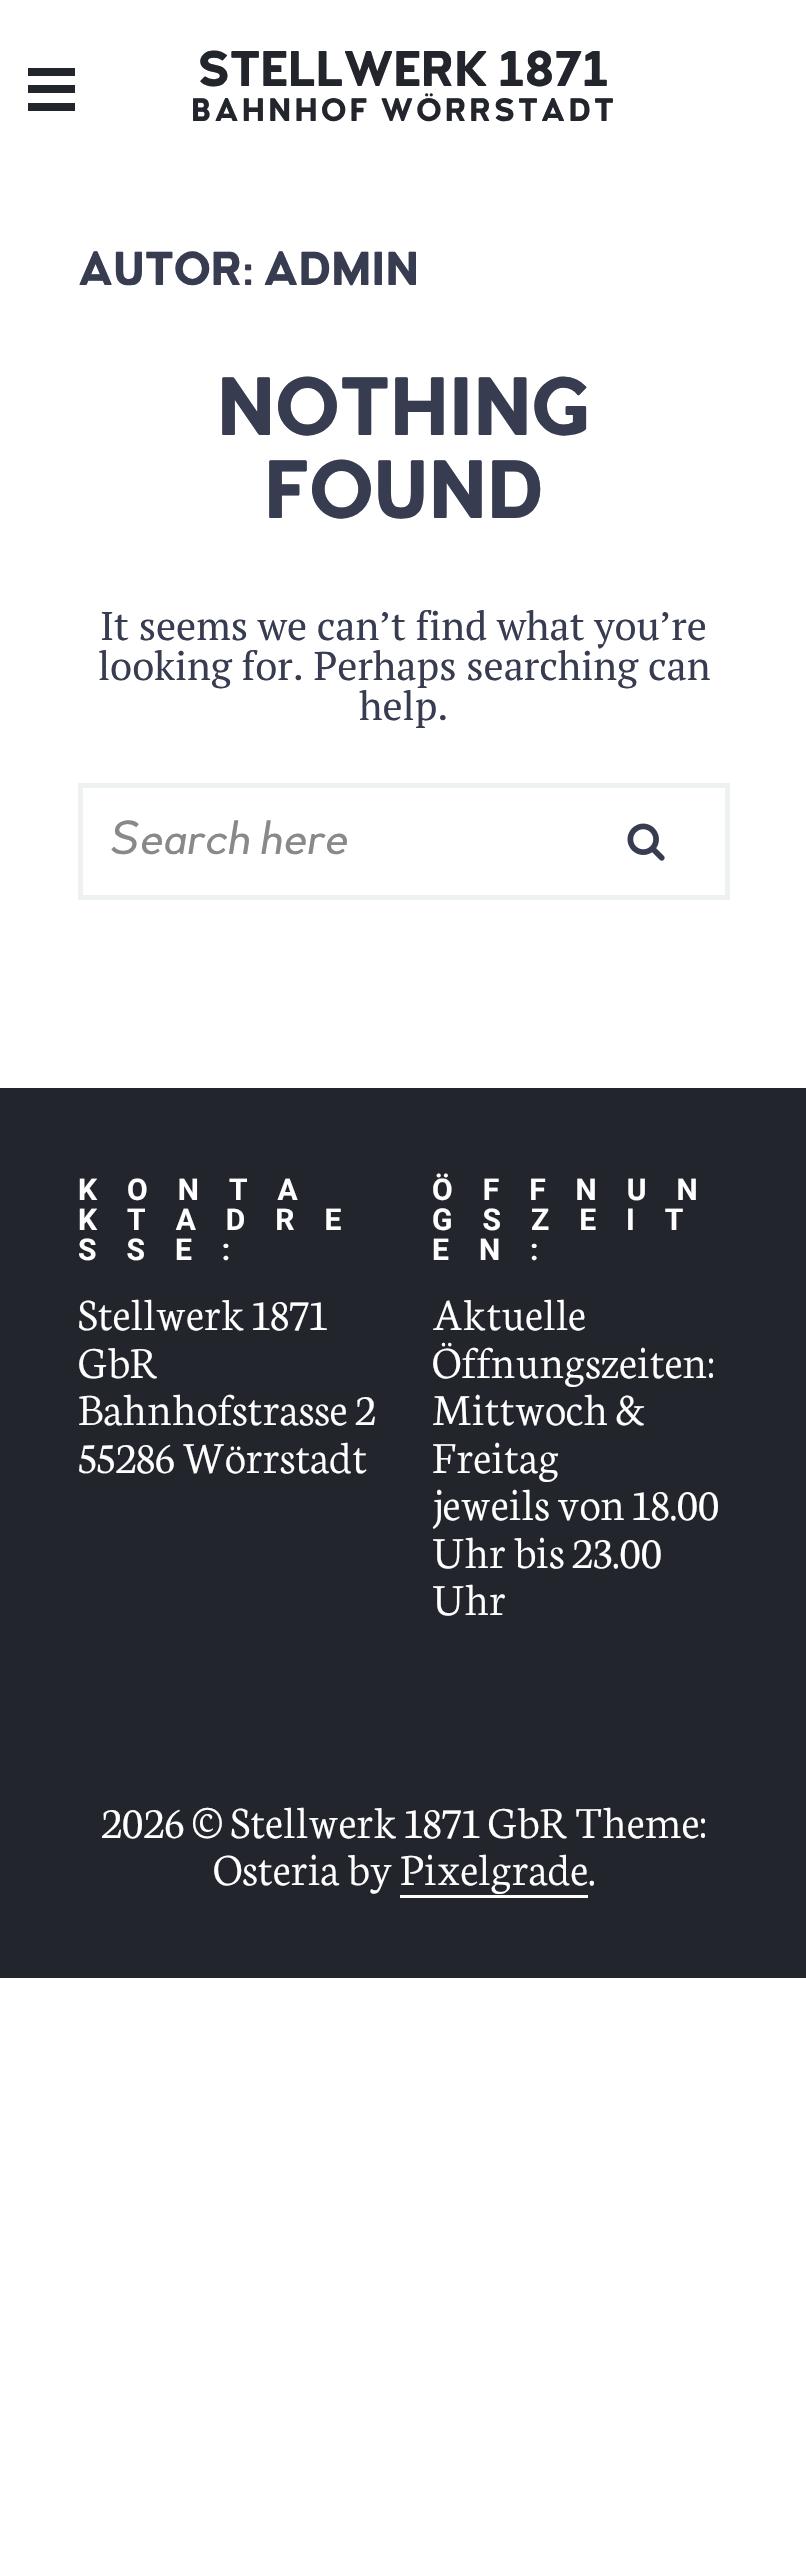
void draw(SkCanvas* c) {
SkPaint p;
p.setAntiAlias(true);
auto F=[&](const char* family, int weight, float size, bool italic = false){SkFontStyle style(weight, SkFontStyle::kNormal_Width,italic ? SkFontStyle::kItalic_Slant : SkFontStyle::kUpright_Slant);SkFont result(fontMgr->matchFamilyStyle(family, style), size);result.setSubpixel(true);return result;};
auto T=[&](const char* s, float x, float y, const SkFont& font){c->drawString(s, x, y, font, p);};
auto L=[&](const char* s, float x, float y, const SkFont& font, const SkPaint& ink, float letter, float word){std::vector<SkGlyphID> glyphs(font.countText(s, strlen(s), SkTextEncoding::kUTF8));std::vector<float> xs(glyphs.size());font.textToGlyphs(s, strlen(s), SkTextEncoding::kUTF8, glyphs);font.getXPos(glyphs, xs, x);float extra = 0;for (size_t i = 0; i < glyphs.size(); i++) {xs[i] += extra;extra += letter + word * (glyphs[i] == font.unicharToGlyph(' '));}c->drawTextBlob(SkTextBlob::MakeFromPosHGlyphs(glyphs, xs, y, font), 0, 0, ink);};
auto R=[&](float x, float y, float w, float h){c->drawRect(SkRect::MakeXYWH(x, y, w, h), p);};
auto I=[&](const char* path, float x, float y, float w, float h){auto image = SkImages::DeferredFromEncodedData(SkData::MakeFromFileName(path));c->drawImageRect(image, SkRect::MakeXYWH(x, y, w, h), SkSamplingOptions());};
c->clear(0xffffffff);
p.setColor(0xff23252d);
R(28,68,47,8);
R(28,85,47,8);
R(28,103,47,8);
auto f1 = F("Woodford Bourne",700,50);
T("STELLWERK 1871",198,86,f1);
auto f2 = F("Woodford Bourne",700,32.5);
L("BAHNHOF WÖRRSTADT",191,121,f2,p,3.25,0);
auto f3 = F("Woodford Bourne",700,47.5);
p.setColor(0xff383c50);
T("AUTOR: ADMIN",78,285,f3);
auto f4 = F("Woodford Bourne",700,82.5);
T("NOTHING",217,435,f4);
T("FOUND",264,518,f4);
auto f5 = F("PT Serif",400,40);
T("It seems we can’t find what you’re",100,640,f5);
T("looking for. Perhaps searching can",98,680,f5);
T("help.",359,720,f5);
p.setStroke(true);
p.setStrokeWidth(5);
p.setColor(0xffeef1f2);
c->drawRect(SkRect::MakeXYWH(80.5,785.5,647,112),p);
auto f6 = F("Woodford Bourne",400,47.5,true);
p.setStroke(false);
p.setColor(0xff898989);
T("Search here",109,854,f6);
I("1.png",627,823,38,38);
p.setColor(0xff23252d);
R(0,1088,806,890);
auto f7 = F("Roboto",700,30);
p.setColor(0xffffffff);
L("KONTA",78,1200,f7,p,30,0);
L("KTADRE",78,1230,f7,p,30,0);
L("SSE:",78,1260,f7,p,30,0);
auto f8 = F("Neuton",300,47.5);
T("Stellwerk 1871",78,1330,f8);
T("GbR",78,1378,f8);
T("Bahnhofstrasse 2",78,1425,f8);
T("55286 Wörrstadt",78,1473,f8);
L("ÖFFNUN",432,1200,f7,p,30,0);
L("GSZEIT",432,1230,f7,p,30,0);
L("EN:",432,1260,f7,p,30,0);
T("Aktuelle",432,1330,f8);
T("Öffnungszeiten:",432,1378,f8);
T("Mittwoch &",432,1425,f8);
T("Freitag",432,1473,f8);
T("jeweils von 18.00",432,1520,f8);
T("Uhr bis 23.00",432,1568,f8);
T("Uhr",432,1615,f8);
T("2026 © Stellwerk 1871 GbR Theme:",101,1838,f8);
T("Osteria by Pixelgrade.",213,1885,f8);
R(400,1895,188,3);
}
